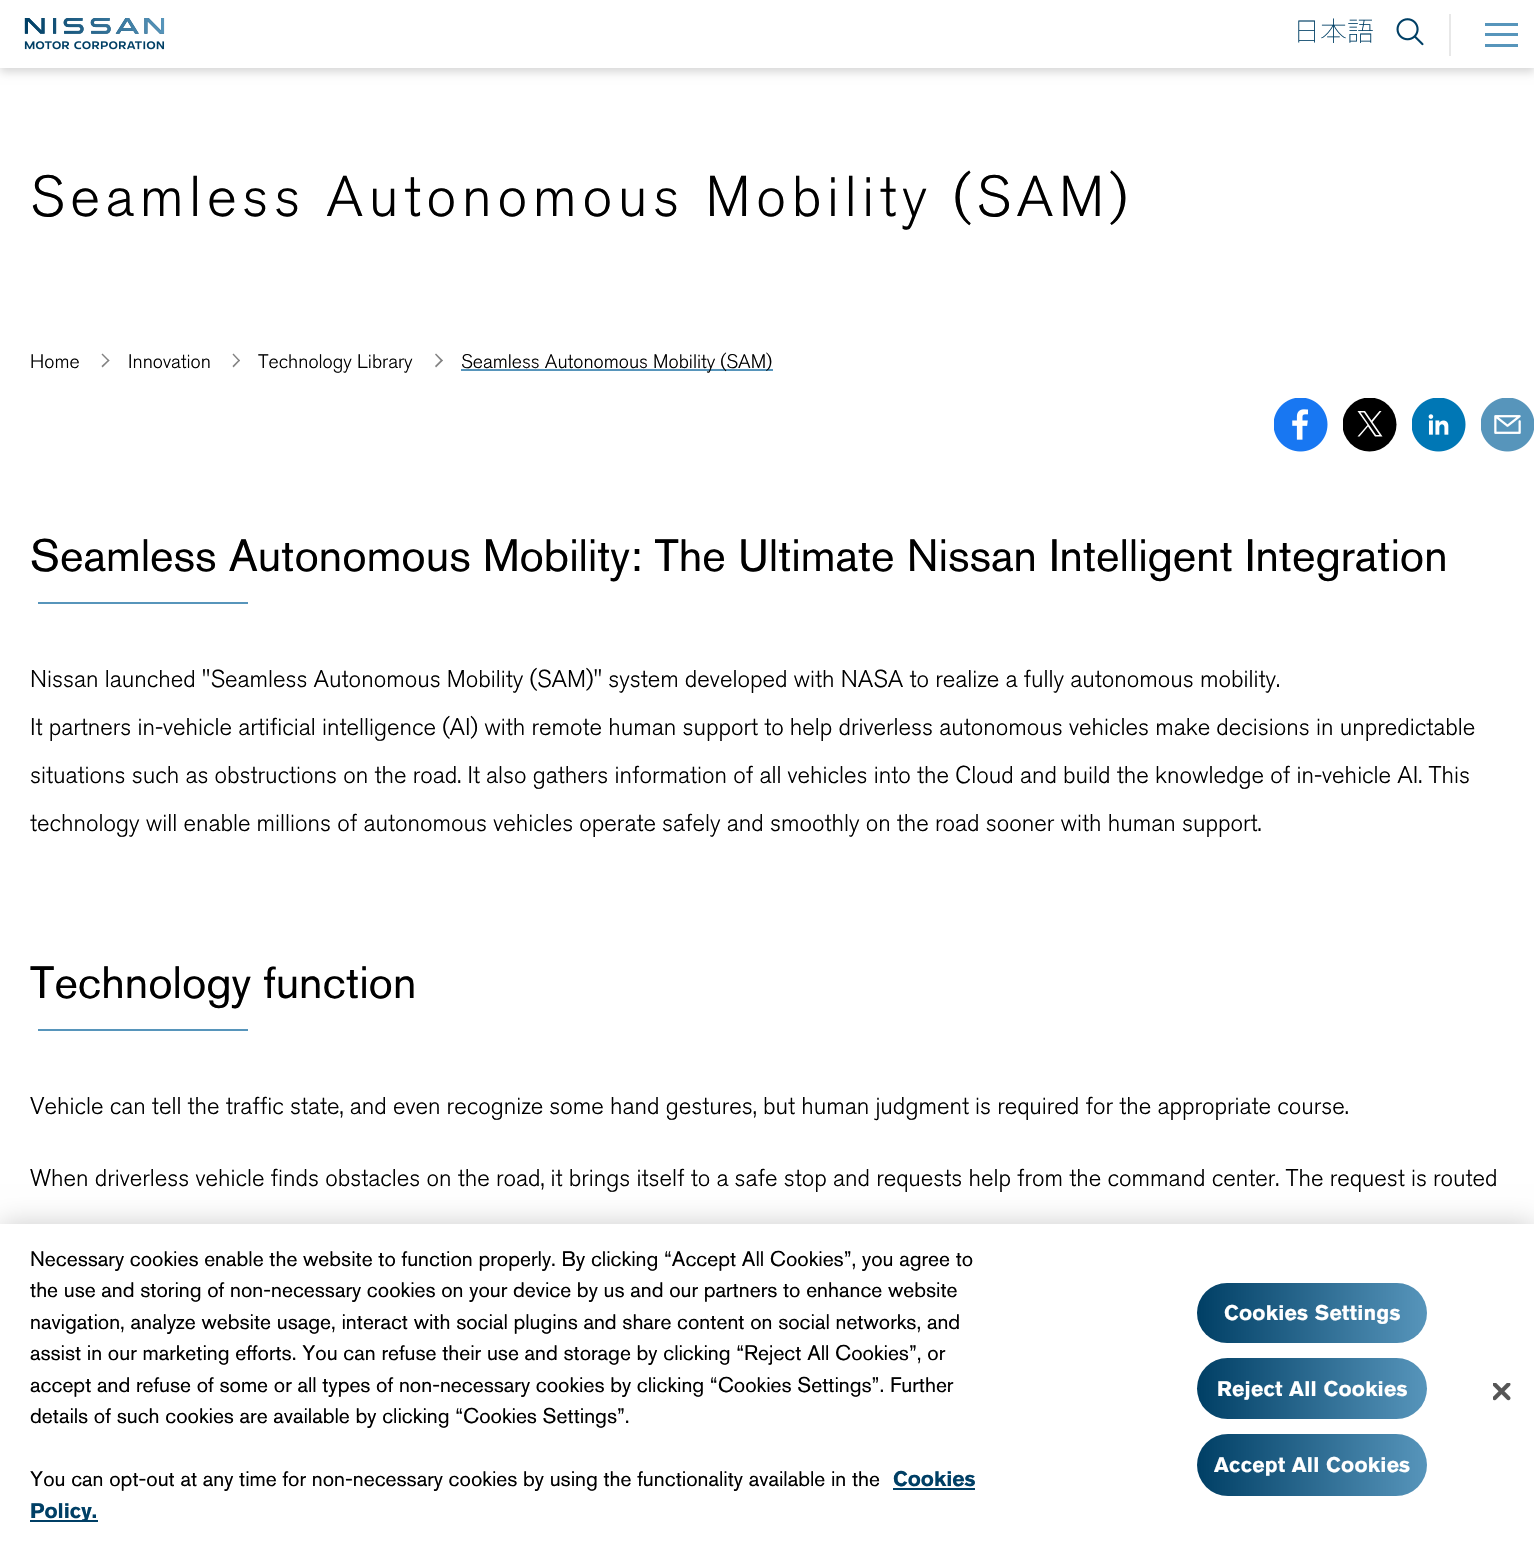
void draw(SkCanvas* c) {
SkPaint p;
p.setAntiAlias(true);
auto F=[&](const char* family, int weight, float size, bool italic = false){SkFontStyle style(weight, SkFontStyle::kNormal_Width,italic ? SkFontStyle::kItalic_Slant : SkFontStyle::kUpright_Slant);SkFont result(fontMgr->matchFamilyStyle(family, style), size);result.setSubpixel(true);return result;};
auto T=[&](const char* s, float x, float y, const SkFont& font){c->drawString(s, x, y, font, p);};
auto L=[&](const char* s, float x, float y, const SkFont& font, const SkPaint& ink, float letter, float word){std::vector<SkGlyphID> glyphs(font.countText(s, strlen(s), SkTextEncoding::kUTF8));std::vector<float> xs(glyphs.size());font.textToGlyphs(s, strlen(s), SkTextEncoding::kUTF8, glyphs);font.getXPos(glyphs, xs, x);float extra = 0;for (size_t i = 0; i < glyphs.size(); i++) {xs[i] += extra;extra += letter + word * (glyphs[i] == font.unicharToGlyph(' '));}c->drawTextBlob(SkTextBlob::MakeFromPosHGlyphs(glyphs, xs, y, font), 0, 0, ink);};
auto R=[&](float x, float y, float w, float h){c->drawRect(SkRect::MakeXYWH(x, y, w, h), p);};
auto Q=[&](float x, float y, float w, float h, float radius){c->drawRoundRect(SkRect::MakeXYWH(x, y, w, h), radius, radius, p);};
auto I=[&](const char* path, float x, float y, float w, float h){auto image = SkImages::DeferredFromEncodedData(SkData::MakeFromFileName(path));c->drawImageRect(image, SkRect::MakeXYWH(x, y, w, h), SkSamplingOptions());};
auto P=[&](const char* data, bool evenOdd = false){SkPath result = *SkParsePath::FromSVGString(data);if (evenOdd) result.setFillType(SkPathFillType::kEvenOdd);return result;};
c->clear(0xffffffff);
p.setColor(0x29000000);
p.setMaskFilter(SkMaskFilter::MakeBlur(kNormal_SkBlurStyle, 4.5));
c->drawRect(SkRect::MakeXYWH(0,5,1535,67),p);
p.setMaskFilter(nullptr);
p.setColor(0xffffffff);
R(0,0,1534,68);
I("1.png",24,18,141,32);
p.setColor(0xffe8e8e8);
R(1449,14,2,42);
auto f1 = F("Noto Sans CJK JP",100,27);
p.setColor(0xff003f65);
T("日本語",1293,41,f1);
I("2.png",1396,18,28,28);
p.setColor(0xff5795bb);
R(1485,23,33,3);
R(1485,33,33,3);
R(1485,44,33,3);
auto f2 = F("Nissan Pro",300,57);
p.setColor(0xff000000);
L("Seamless Autonomous Mobility (SAM)",30,216,f2,p,5.7,0);
auto f3 = F("Nissan Pro",300,19.5);
T("Home",30,368,f3);
p.setColor(0xff828282);
c->drawPath(P("M102.5 353.5l7 7l-1 1l-7-7z"),p);
c->drawPath(P("M108.5 359.5l1 1l-7 7l-1-1.5z"),p);
p.setColor(0xff000000);
T("Innovation",128,368,f3);
p.setColor(0xff828282);
c->drawPath(P("M233.5 353.5l6.5 7l-1 1l-6.5-7z"),p);
c->drawPath(P("M239 359.5l1 1l-6.5 7l-1-1.5z"),p);
p.setColor(0xff000000);
T("Technology Library",258,368,f3);
p.setColor(0xff828282);
c->drawPath(P("M436 353.5l7 7l-1.5 1l-6.5-7z"),p);
c->drawPath(P("M441.5 359.5l1.5 1l-7 7l-1-1.5z"),p);
p.setColor(0xff5795bb);
R(461,369,312,2);
p.setColor(0xff000000);
T("Seamless Autonomous Mobility (SAM)",461,368,f3);
I("3.png",1274,398,54,54);
c->save();
c->clipRect(SkRect::MakeXYWH(1343,398,54,54));
c->drawCircle(1369.5,424.5,27,p);
c->restore();
p.setColor(0xffffffff);
c->drawPath(P("M1372.5 422l9-11h-2l-8 9.5l-6.5-9.5h-7.5l10 14l-10 11.5h2l8.5-10l7 10h7.5zm-3 3.5l-9-13h3.5l15.5 22.5h-3.5z"),p);
I("4.png",1412,398,54,54);
I("5.png",1481,398,53,54);
auto f4 = F("Nissan Pro",400,45);
p.setColor(0xff000000);
T("Seamless Autonomous Mobility: The Ultimate Nissan Intelligent Integration",30,571,f4);
p.setColor(0xff5795bb);
R(38,602,210,2);
auto f5 = F("Nissan Pro",300,24);
p.setColor(0xff000000);
T("Nissan launched \"Seamless Autonomous Mobility (SAM)\" system developed with NASA to realize a fully autonomous mobility.",30,687,f5);
T("It partners in-vehicle artificial intelligence (AI) with remote human support to help driverless autonomous vehicles make decisions in unpredictable",30,735,f5);
T("situations such as obstructions on the road. It also gathers information of all vehicles into the Cloud and build the knowledge of in-vehicle AI. This",30,783,f5);
T("technology will enable millions of autonomous vehicles operate safely and smoothly on the road sooner with human support.",30,831,f5);
T("Technology function",30,998,f4);
p.setColor(0xff5795bb);
R(38,1029,210,2);
p.setColor(0xff000000);
T("Vehicle can tell the traffic state, and even recognize some hand gestures, but human judgment is required for the appropriate course.",30,1114,f5);
T("When driverless vehicle finds obstacles on the road, it brings itself to a safe stop and requests help from the command center. The request is routed",30,1186,f5);
p.setColor(0x33000000);
p.setMaskFilter(SkMaskFilter::MakeBlur(kNormal_SkBlurStyle, 13.5));
c->drawRect(SkRect::MakeXYWH(0,1224,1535,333),p);
p.setMaskFilter(nullptr);
p.setColor(0xffffffff);
R(0,1224,1534,332);
auto f6 = F("Nissan Pro",400,21);
p.setColor(0xff000000);
T("Necessary cookies enable the website to function properly. By clicking “Accept All Cookies”, you agree to",30,1266,f6);
T("the use and storing of non-necessary cookies on your device by us and our partners to enhance website",30,1297,f6);
T("navigation, analyze website usage, interact with social plugins and share content on social networks, and",30,1329,f6);
T("assist in our marketing efforts. You can refuse their use and storage by clicking “Reject All Cookies”, or",30,1360,f6);
T("accept and refuse of some or all types of non-necessary cookies by clicking “Cookies Settings”. Further",30,1392,f6);
T("details of such cookies are available by clicking “Cookies Settings”.",30,1423,f6);
T("You can opt-out at any time for non-necessary cookies by using the functionality available in the",30,1486,f6);
auto f7 = F("Nissan Pro",700,21);
p.setColor(0xff003f65);
T("Cookies",893,1486,f7);
R(893,1488,82,2);
R(30,1520,68,2);
T("Policy.",30,1518,f7);
{
const SkColor colors[] = {0xff003f65,0xff5795bb};
const float stops[] = {0,1};
const SkPoint ends[] = {{1197,1313}, {1427,1313}};
p.setShader(SkGradientShader::MakeLinear(ends, colors, stops, 2, SkTileMode::kClamp));
p.setAlpha(255);
}
Q(1197,1283,230,60,30);
p.setShader(nullptr);
p.setColor(0xffffffff);
L("Cookies Settings",1224,1320,f7,p,.25,0);
{
const SkColor colors[] = {0xff003f65,0xff5795bb};
const float stops[] = {0,1};
const SkPoint ends[] = {{1197,1388}, {1427,1388}};
p.setShader(SkGradientShader::MakeLinear(ends, colors, stops, 2, SkTileMode::kClamp));
p.setAlpha(255);
}
Q(1197,1358,230,61,30.5);
p.setShader(nullptr);
p.setColor(0xffffffff);
L("Reject All Cookies",1217,1396,f7,p,.25,0);
{
const SkColor colors[] = {0xff003f65,0xff5795bb};
const float stops[] = {0,1};
const SkPoint ends[] = {{1197,1465}, {1427,1465}};
p.setShader(SkGradientShader::MakeLinear(ends, colors, stops, 2, SkTileMode::kClamp));
p.setAlpha(255);
}
Q(1197,1434,230,62,31);
p.setShader(nullptr);
p.setColor(0xffffffff);
L("Accept All Cookies",1214,1472,f7,p,.25,0);
I("6.png",1493,1383,18,18);
}
